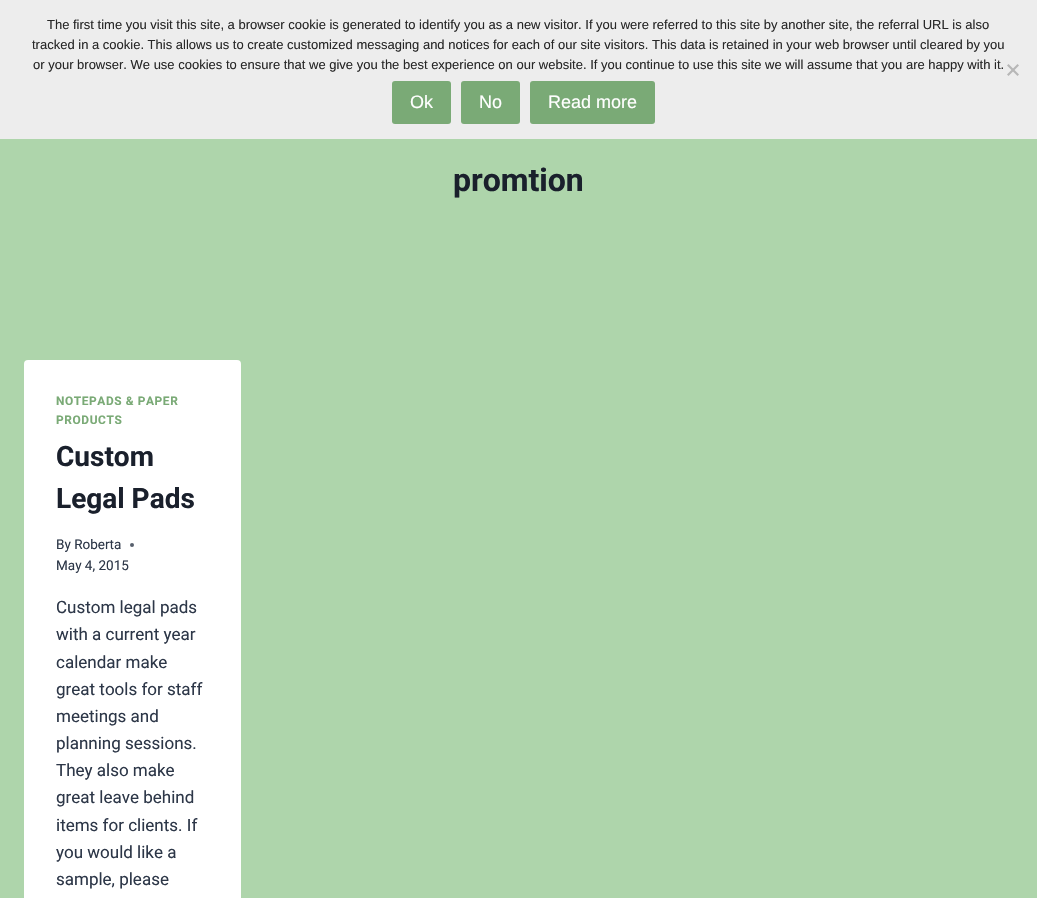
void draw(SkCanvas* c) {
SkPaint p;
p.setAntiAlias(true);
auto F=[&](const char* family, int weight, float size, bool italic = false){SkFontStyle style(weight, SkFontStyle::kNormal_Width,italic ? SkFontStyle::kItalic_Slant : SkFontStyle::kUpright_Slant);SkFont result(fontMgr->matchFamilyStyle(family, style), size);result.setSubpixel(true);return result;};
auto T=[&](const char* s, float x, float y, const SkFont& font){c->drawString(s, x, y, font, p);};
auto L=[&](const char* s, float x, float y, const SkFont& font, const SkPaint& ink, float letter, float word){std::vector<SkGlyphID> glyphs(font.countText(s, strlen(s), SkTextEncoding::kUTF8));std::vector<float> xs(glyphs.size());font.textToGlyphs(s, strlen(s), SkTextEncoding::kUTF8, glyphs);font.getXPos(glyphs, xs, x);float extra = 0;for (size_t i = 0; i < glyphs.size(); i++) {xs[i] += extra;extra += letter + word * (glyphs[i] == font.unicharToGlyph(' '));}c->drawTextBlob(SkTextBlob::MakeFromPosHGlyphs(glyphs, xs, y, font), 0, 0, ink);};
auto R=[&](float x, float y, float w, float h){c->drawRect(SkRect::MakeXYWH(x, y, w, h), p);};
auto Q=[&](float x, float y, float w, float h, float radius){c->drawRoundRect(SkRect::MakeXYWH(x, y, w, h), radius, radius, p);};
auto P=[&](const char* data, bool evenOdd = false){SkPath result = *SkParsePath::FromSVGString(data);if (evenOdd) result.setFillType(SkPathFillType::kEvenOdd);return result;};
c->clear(0xffaed5ab);
p.setColor(0xffededed);
R(0,0,1037,139);
auto f1 = F("Liberation Sans",400,13);
p.setColor(0xff282828);
T("The first time you visit this site, a browser cookie is generated to identify you as a new visitor. If you were referred to this site by another site, the referral URL is also",47,29,f1);
T("tracked in a cookie. This allows us to create customized messaging and notices for each of our site visitors. This data is retained in your web browser until cleared by you",32,49,f1);
T("or your browser. We use cookies to ensure that we give you the best experience on our website. If you continue to use this site we will assume that you are happy with it.",33,69,f1);
p.setColor(0xffb7b7b7);
c->drawPath(P("M1017.5 64l1.5 1.5l-10.5 10.5l-1.5-1.5z"),p);
c->drawPath(P("M1007 65.5l1.5-1.5l10.5 10.5l-1.5 1.5z"),p);
p.setColor(0xff7aaa76);
Q(392,81,59,43,3);
auto f2 = F("Liberation Sans",400,18);
p.setColor(0xffffffff);
T("Ok",410,108,f2);
p.setColor(0xff7aaa76);
Q(461,81,59,43,3);
p.setColor(0xffffffff);
T("No",479,108,f2);
p.setColor(0xff7aaa76);
Q(530,81,125,43,3);
p.setColor(0xffffffff);
T("Read more",548,108,f2);
auto f3 = F("Roboto",700,32);
p.setColor(0xff1a202c);
T("promtion",453,191,f3);
p.setColor(0xffffffff);
Q(24,360,217,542,4);
auto f4 = F("Roboto",700,11.9);
p.setColor(0xff7aaa76);
L("NOTEPADS & PAPER",56,405,f4,p,.6,0);
L("PRODUCTS",56,424,f4,p,.6,0);
auto f5 = F("Roboto",700,28);
p.setColor(0xff1a202c);
T("Custom",56,466,f5);
T("Legal Pads",56,508,f5);
auto f6 = F("Roboto",400,13.5);
p.setColor(0xff2d3748);
T("By Roberta",56,549,f6);
p.setColor(0xff575f6d);
c->drawCircle(132,545,2,p);
p.setColor(0xff2d3748);
T("May 4, 2015",56,570,f6);
auto f7 = F("Roboto",400,17);
T("Custom legal pads",56,613,f7);
T("with a current year",56,640,f7);
T("calendar make",56,668,f7);
T("great tools for staff",56,695,f7);
T("meetings and",56,722,f7);
T("planning sessions.",56,749,f7);
T("They also make",56,776,f7);
T("great leave behind",56,803,f7);
T("items for clients. If",56,831,f7);
T("you would like a",56,858,f7);
T("sample, please",56,885,f7);
}
